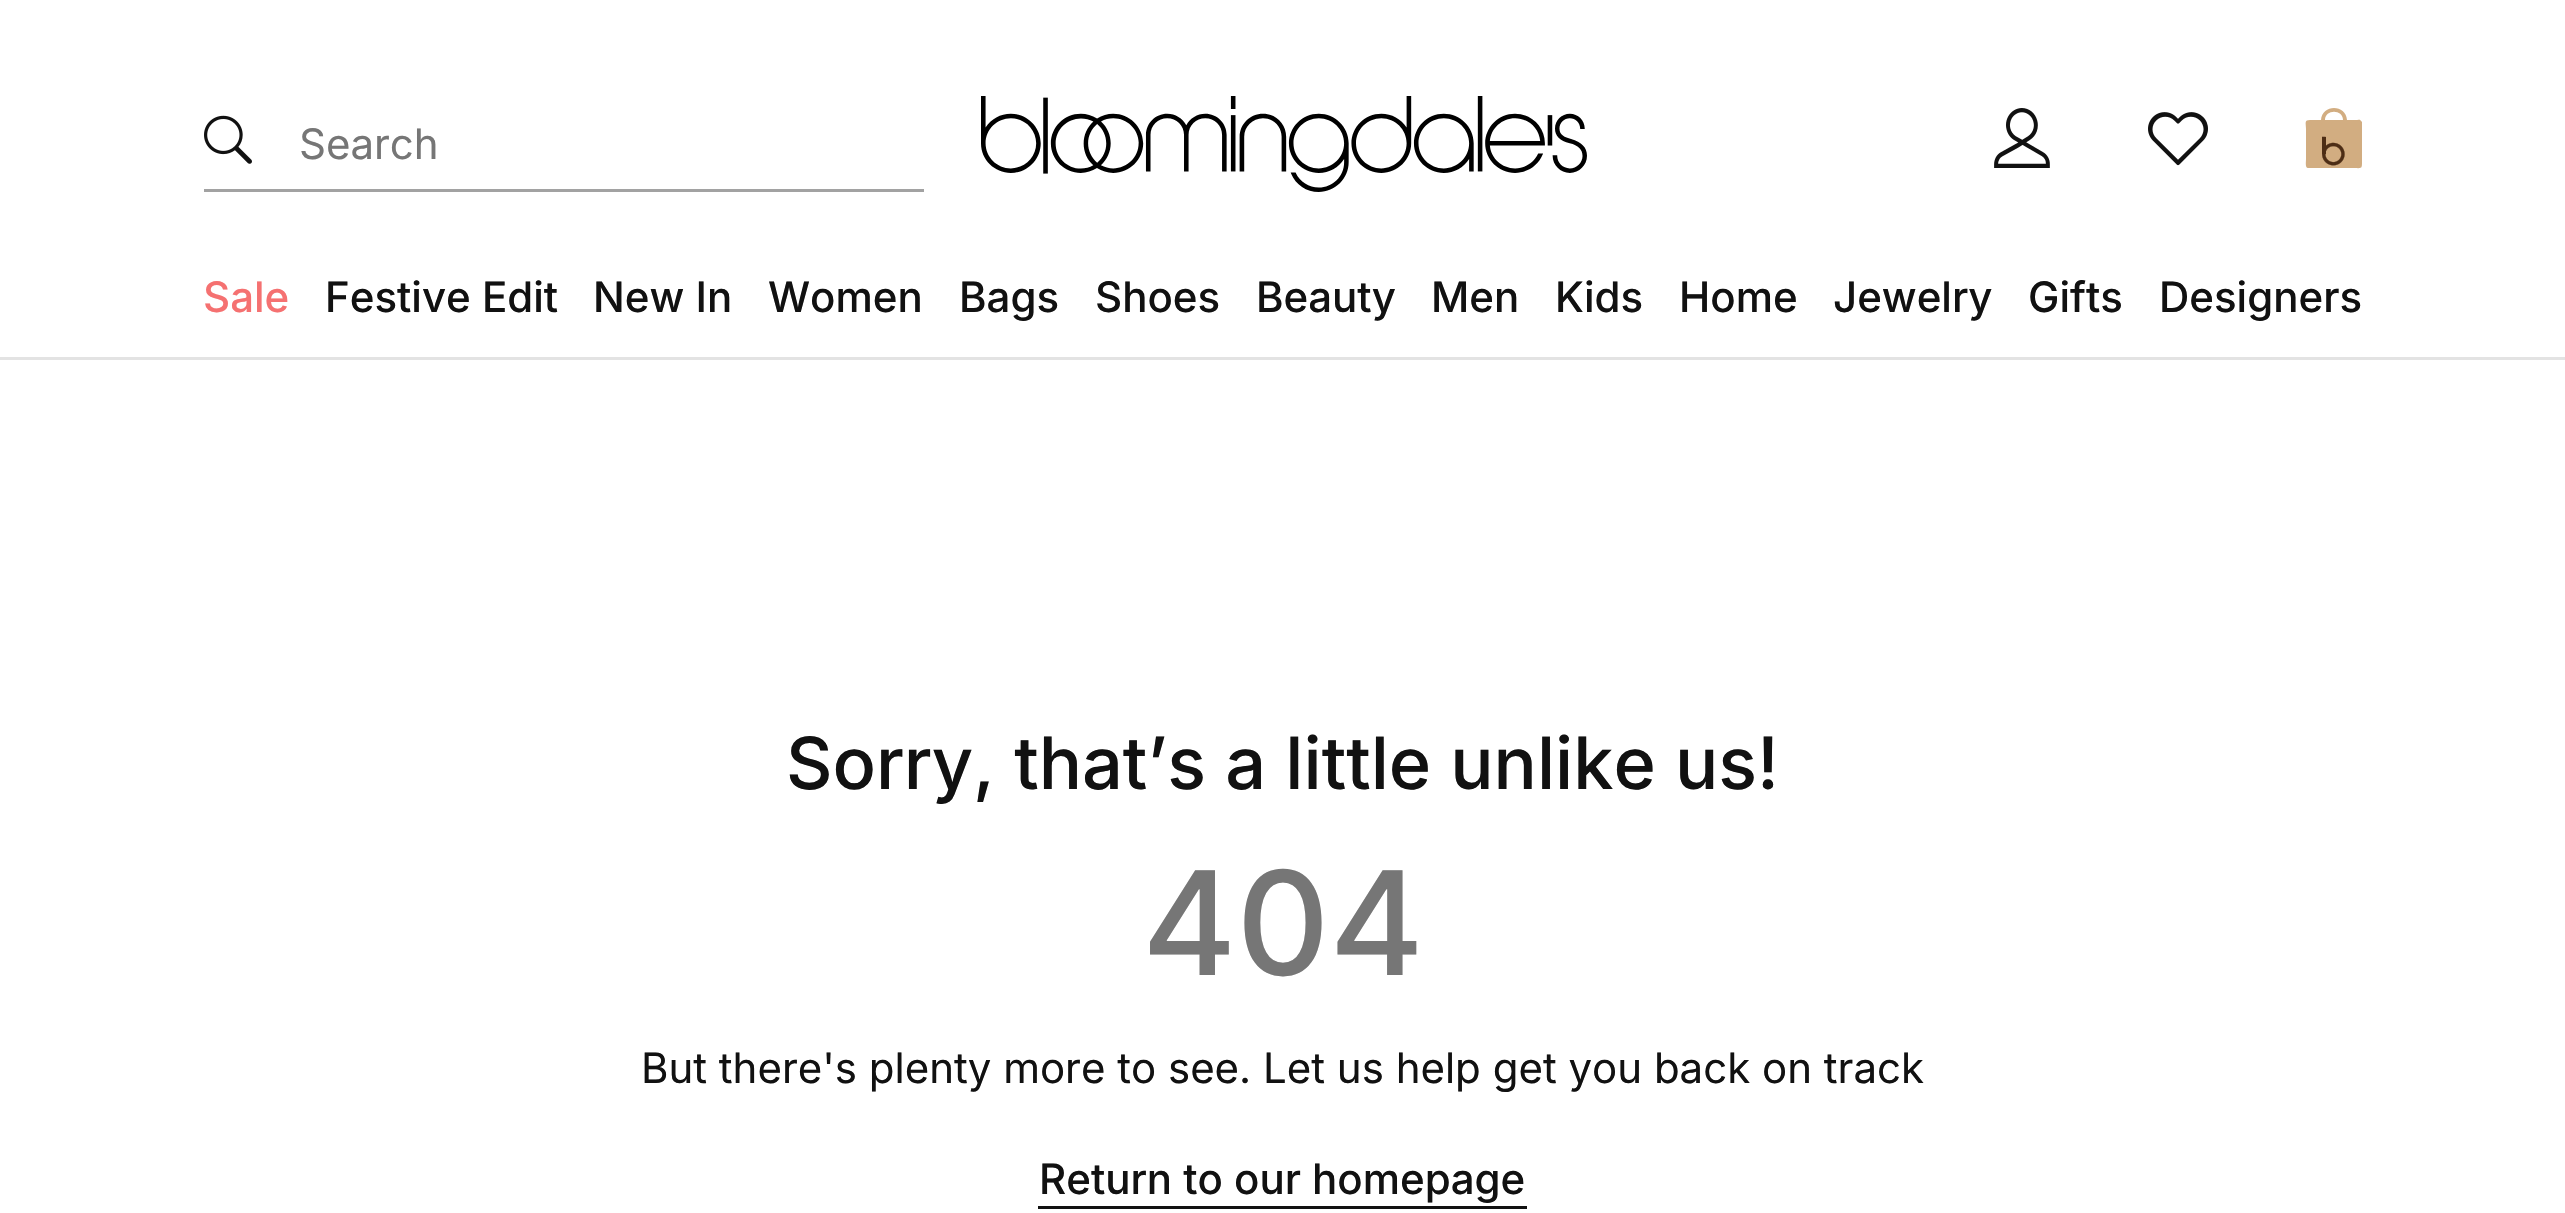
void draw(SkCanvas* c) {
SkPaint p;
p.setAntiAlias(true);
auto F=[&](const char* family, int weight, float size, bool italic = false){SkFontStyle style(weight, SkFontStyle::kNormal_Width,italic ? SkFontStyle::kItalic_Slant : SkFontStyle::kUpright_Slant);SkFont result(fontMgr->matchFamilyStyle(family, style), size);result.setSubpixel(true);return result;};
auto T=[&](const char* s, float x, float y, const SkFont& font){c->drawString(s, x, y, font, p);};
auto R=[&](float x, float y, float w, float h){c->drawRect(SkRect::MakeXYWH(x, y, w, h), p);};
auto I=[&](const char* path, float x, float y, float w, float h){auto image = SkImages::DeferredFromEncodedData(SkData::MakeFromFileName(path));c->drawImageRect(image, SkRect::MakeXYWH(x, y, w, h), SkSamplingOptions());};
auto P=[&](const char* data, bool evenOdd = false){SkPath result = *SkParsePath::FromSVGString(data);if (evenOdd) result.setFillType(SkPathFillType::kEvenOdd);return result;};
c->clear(0xffffffff);
p.setColor(0xffe3e3e3);
R(0,357,2565,3);
p.setColor(0xffa2a2a2);
R(204,189,720,3);
I("1.png",204,115,48,49);
auto f1 = F("Inter",400,42);
p.setColor(0xff767676);
T("Search",299,159,f1);
I("2.png",981,96,606,96);
I("3.png",1994,108,56,60);
I("4.png",2148,112,60,54);
p.setColor(0xffd2ad81);
c->drawPath(P("M2308 168h43c12 0 11 2 11-9v-37c-3-3-1-2-6-2h-9c-1-16-25-16-26 0h-11c-6 0-4 3-4 9v30c0 3-1 9 2 9zm17-48c0-11 18-11 18 0z"),p);
I("5.png",2322,136,23,30);
auto f2 = F("Inter",500,42);
p.setColor(0xfff57171);
T("Sale",203,312,f2);
p.setColor(0xff111111);
T("Festive Edit",325,312,f2);
T("New In",593,312,f2);
T("Women",768,312,f2);
T("Bags",959,312,f2);
T("Shoes",1095,312,f2);
T("Beauty",1256,312,f2);
T("Men",1431,312,f2);
T("Kids",1555,312,f2);
T("Home",1679,312,f2);
T("Jewelry",1833,312,f2);
T("Gifts",2028,312,f2);
T("Designers",2159,312,f2);
auto f3 = F("Inter",500,72);
T("Sorry, that’s a little unlike us!",786,789,f3);
auto f4 = F("Inter",500,144);
p.setColor(0xff767676);
T("404",1142,975,f4);
p.setColor(0xff111111);
T("But there's plenty more to see. Let us help get you back on track",641,1083,f1);
R(1038,1206,489,3);
T("Return to our homepage",1039,1194,f2);
}
